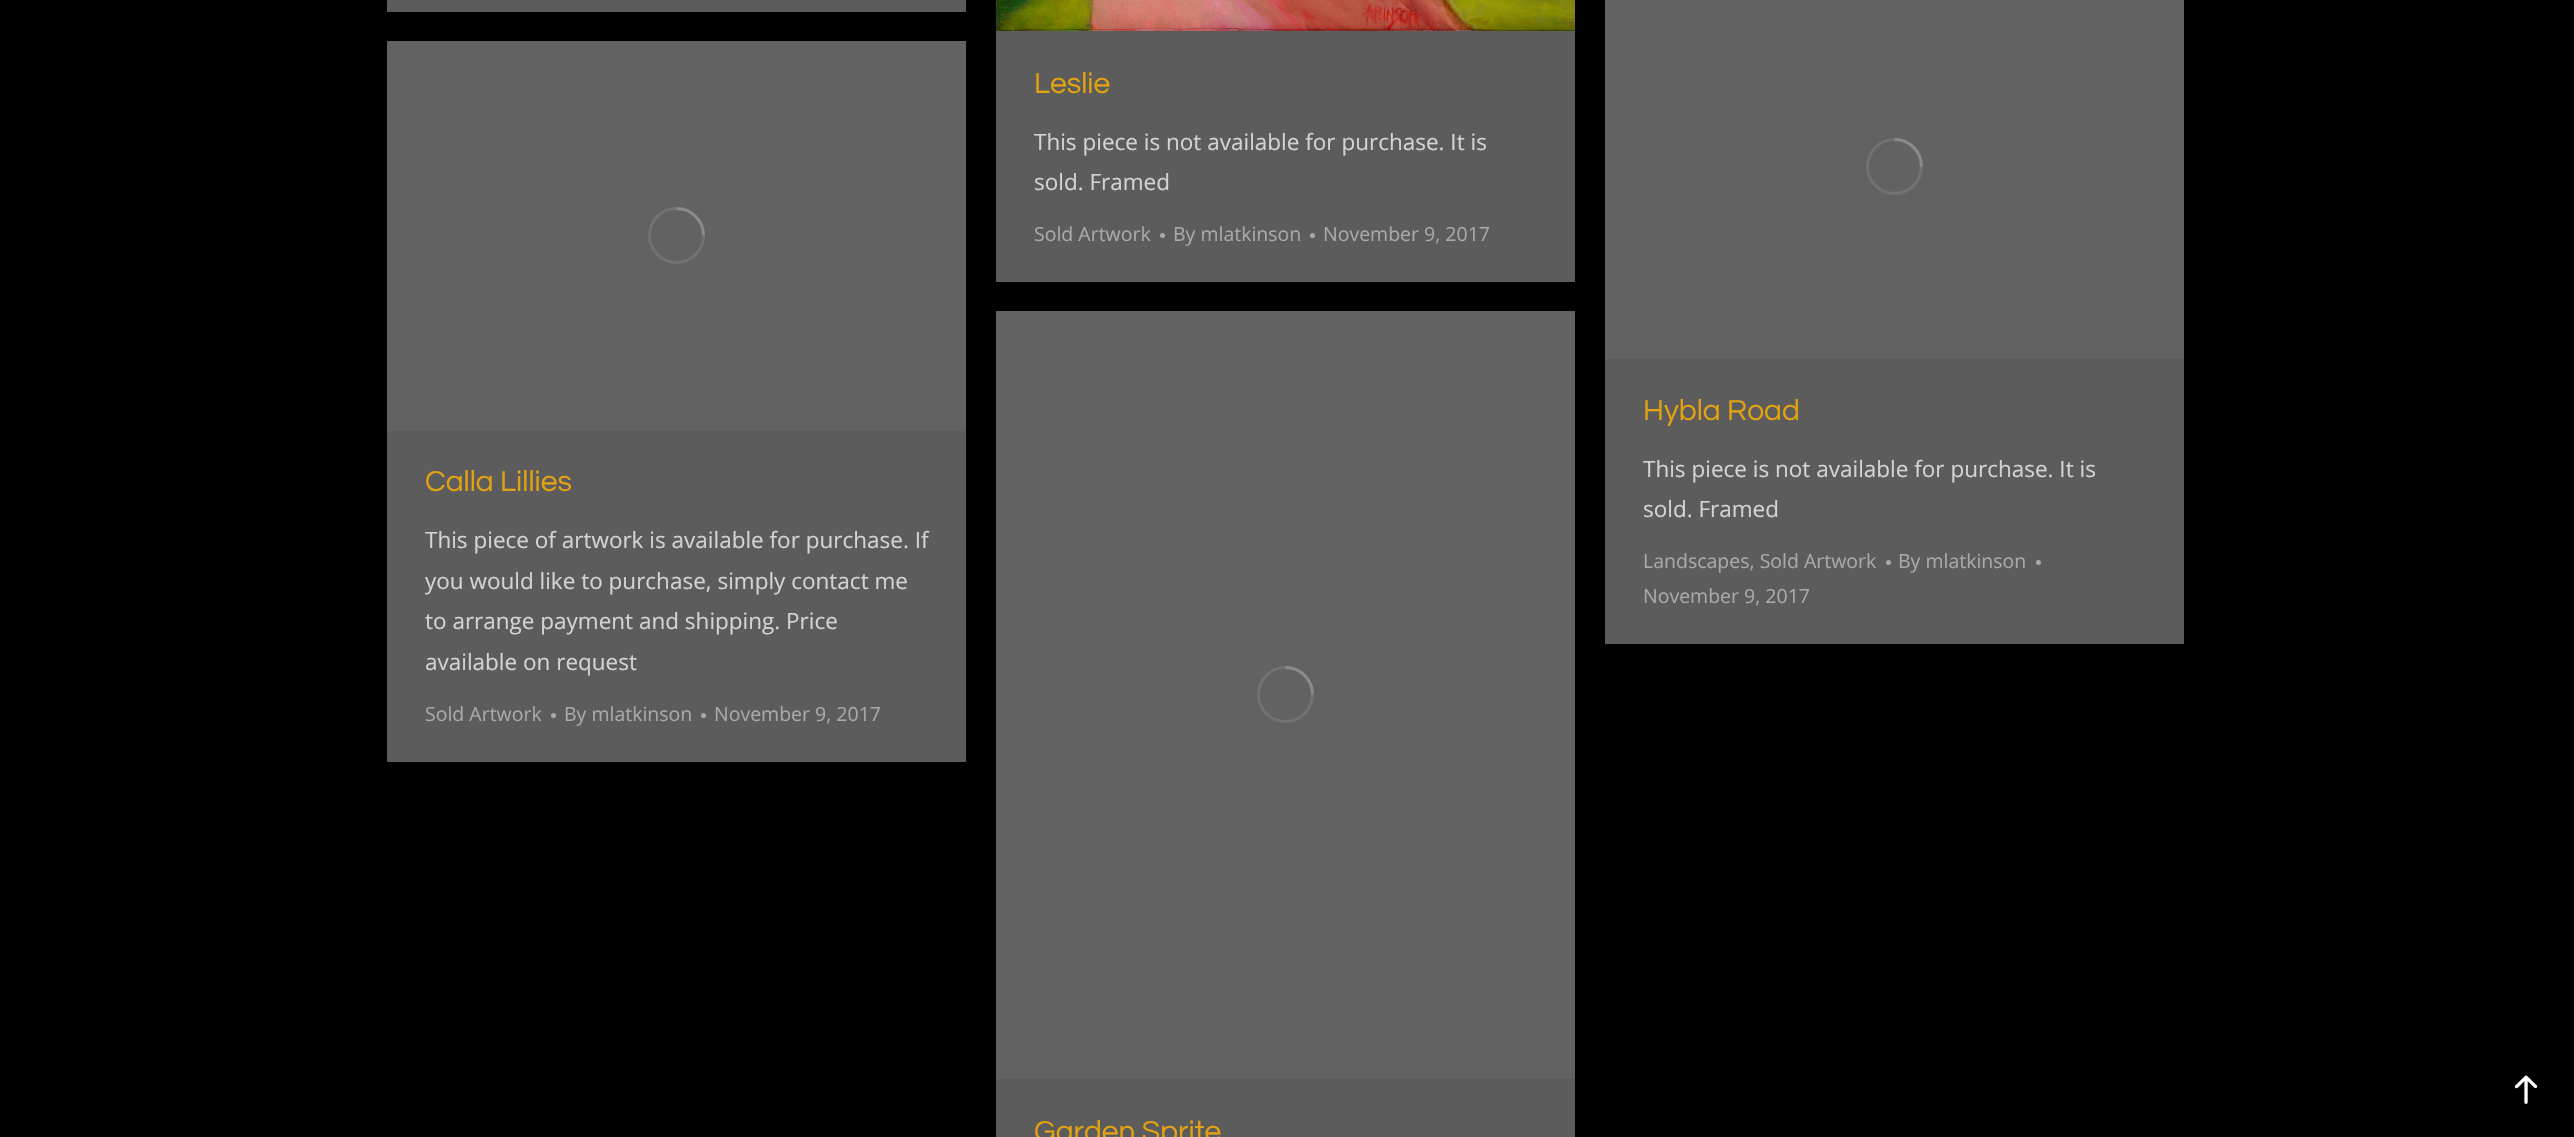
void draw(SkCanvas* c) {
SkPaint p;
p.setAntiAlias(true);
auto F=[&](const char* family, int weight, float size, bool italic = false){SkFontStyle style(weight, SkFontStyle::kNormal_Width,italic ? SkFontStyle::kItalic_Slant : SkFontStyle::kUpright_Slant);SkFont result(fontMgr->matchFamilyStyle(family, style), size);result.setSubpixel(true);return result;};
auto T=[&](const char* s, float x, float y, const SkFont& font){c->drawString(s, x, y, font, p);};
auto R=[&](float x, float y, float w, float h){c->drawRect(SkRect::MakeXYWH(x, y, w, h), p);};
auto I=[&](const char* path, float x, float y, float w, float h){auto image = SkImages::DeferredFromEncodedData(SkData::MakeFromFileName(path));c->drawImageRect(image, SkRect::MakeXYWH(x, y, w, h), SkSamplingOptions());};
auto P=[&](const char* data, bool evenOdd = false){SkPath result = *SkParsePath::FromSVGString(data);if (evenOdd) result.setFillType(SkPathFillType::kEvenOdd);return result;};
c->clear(0xff000000);
p.setColor(0xff5c5c5c);
R(387,0,579,12);
R(996,31,579,251);
I("1.png",996,0,579,31);
auto f1 = F("Questrial",400,30);
p.setColor(0xffe2a211);
T("Leslie",1034,93,f1);
auto f2 = F("Open Sans",400,22.5);
p.setColor(0xffd1d3d4);
T("This piece is not available for purchase. It is",1034,150,f2);
T("sold. Framed",1034,190,f2);
auto f3 = F("Open Sans",400,19.5);
p.setColor(0xffa7a9ac);
T("Sold Artwork",1034,241,f3);
c->drawCircle(1162.5,235.5,2.5,p);
T("By mlatkinson",1173,241,f3);
c->drawCircle(1312.5,235.5,2.5,p);
T("November 9, 2017",1323,241,f3);
p.setColor(0xff5c5c5c);
R(387,431,579,331);
p.setColor(0xff626262);
R(387,41,579,390);
p.setStroke(true);
p.setStrokeWidth(3);
p.setColor(0xff717272);
c->drawCircle(676.5,235.5,27,p);
p.setColor(0x40d1d3d4);
c->drawPath(P("M703.5 235.5c0-15-12-27-27-27"),p);
p.setStroke(false);
p.setColor(0xffe2a211);
T("Calla Lillies",425,491,f1);
p.setColor(0xffd1d3d4);
T("This piece of artwork is available for purchase. If",425,548,f2);
T("you would like to purchase, simply contact me",425,589,f2);
T("to arrange payment and shipping. Price",425,629,f2);
T("available on request",425,670,f2);
p.setColor(0xffa7a9ac);
T("Sold Artwork",425,721,f3);
c->drawCircle(553.5,715.5,2.5,p);
T("By mlatkinson",564,721,f3);
c->drawCircle(703.5,715.5,2.5,p);
T("November 9, 2017",714,721,f3);
p.setColor(0xff5c5c5c);
R(1605,359,579,285);
p.setColor(0xff626262);
R(1605,0,579,359);
p.setStroke(true);
p.setColor(0xff717272);
c->drawCircle(1894.5,166.5,27,p);
p.setColor(0x40d1d3d4);
c->drawPath(P("M1921.5 166.5c0-15-12-27-27-27"),p);
p.setStroke(false);
p.setColor(0xffe2a211);
T("Hybla Road",1643,420,f1);
p.setColor(0xffd1d3d4);
T("This piece is not available for purchase. It is",1643,477,f2);
T("sold. Framed",1643,517,f2);
p.setColor(0xffa7a9ac);
T("Landscapes, Sold Artwork",1643,568,f3);
c->drawCircle(1888.5,562.5,2.5,p);
T("By mlatkinson",1898,568,f3);
c->drawCircle(2038.5,562.5,2.5,p);
T("November 9, 2017",1643,603,f3);
p.setColor(0xff5c5c5c);
R(996,1079,579,58);
p.setColor(0xff626262);
R(996,311,579,768);
p.setStroke(true);
p.setColor(0xff717272);
c->drawCircle(1285.5,694.5,27,p);
p.setColor(0x40d1d3d4);
c->drawPath(P("M1312.5 694.5c0-15-12-27-27-27"),p);
p.setStroke(false);
p.setColor(0xffe2a211);
T("Garden Sprite",1034,1141,f1);
I("2.png",2514,1075,24,29);
}
